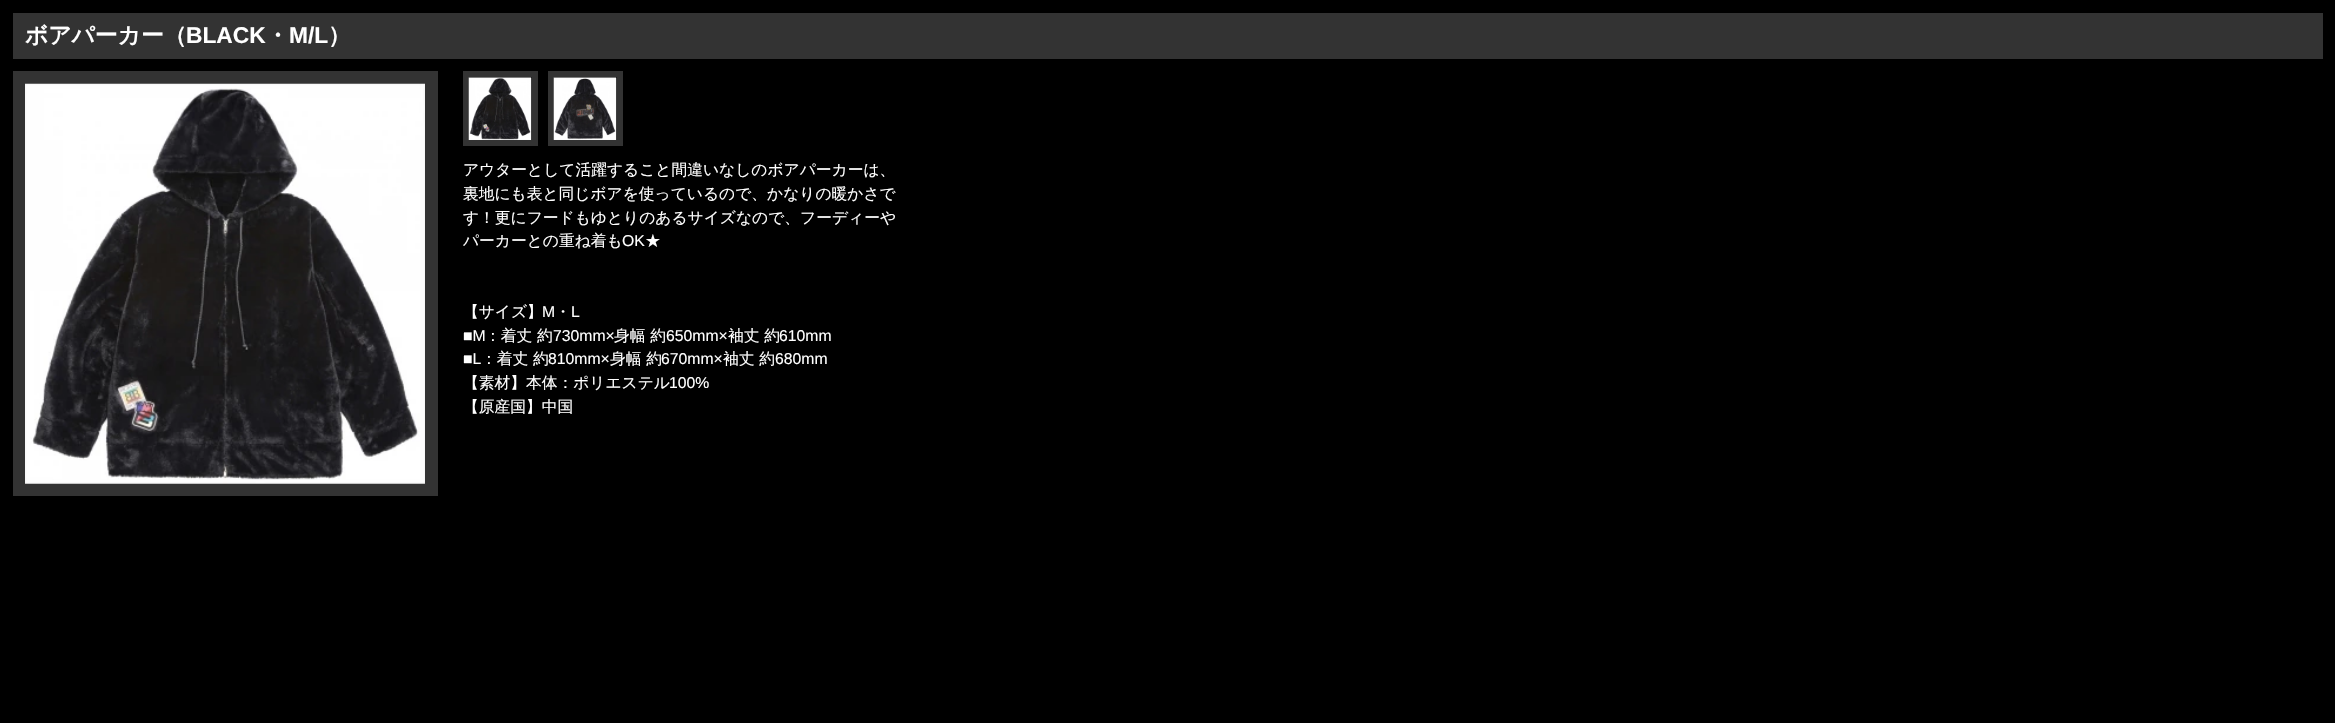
void draw(SkCanvas* c) {
SkPaint p;
p.setAntiAlias(true);
auto F=[&](const char* family, int weight, float size, bool italic = false){SkFontStyle style(weight, SkFontStyle::kNormal_Width,italic ? SkFontStyle::kItalic_Slant : SkFontStyle::kUpright_Slant);SkFont result(fontMgr->matchFamilyStyle(family, style), size);result.setSubpixel(true);return result;};
auto T=[&](const char* s, float x, float y, const SkFont& font){c->drawString(s, x, y, font, p);};
auto R=[&](float x, float y, float w, float h){c->drawRect(SkRect::MakeXYWH(x, y, w, h), p);};
auto I=[&](const char* path, float x, float y, float w, float h){auto image = SkImages::DeferredFromEncodedData(SkData::MakeFromFileName(path));c->drawImageRect(image, SkRect::MakeXYWH(x, y, w, h), SkSamplingOptions());};
c->clear(0xff000000);
p.setColor(0xff333333);
R(13,13,2310,46);
auto f1 = F("WenQuanYi Zen Hei",700,22.75);
p.setColor(0xffffffff);
T("ボアパーカー（",25,43,f1);
auto f2 = F("Liberation Sans",700,22.75);
T("BLACK",186,43,f2);
T("・",266,43,f1);
T("M/L",289,43,f2);
T("）",328,43,f1);
p.setStroke(true);
p.setStrokeWidth(13);
p.setColor(0xff333333);
c->drawRect(SkRect::MakeXYWH(19.5,77.5,412,412),p);
I("1.png",25,83,400,401);
p.setStrokeWidth(6);
c->drawRect(SkRect::MakeXYWH(466,74,69,69),p);
I("2.png",468,77,64,63);
c->drawRect(SkRect::MakeXYWH(551,74,69,69),p);
I("3.png",553,77,64,63);
auto f3 = F("WenQuanYi Zen Hei",500,15.75);
p.setStroke(false);
p.setColor(0xffffffff);
T("アウターとして活躍すること間違いなしのボアパーカーは、",463,175,f3);
T("裏地にも表と同じボアを使っているので、かなりの暖かさで",463,199,f3);
T("す！更にフードもゆとりのあるサイズなので、フーディーや",463,223,f3);
T("パーカーとの重ね着も",463,246,f3);
auto f4 = F("Liberation Sans",400,15.75);
T("OK",622,246,f4);
T("★",645,246,f3);
T("【サイズ】",463,317,f3);
T("M",542,317,f4);
T("・",555,317,f3);
T("L",571,317,f4);
T("■M",463,341,f4);
T("：着丈 約",485,341,f3);
T("730mm×",553,341,f4);
T("身幅 約",614,341,f3);
T("650mm×",666,341,f4);
T("袖丈 約",728,341,f3);
T("610mm",779,341,f4);
T("■L",463,364,f4);
T("：着丈 約",481,364,f3);
T("810mm×",548,364,f4);
T("身幅 約",610,364,f3);
T("670mm×",661,364,f4);
T("袖丈 約",723,364,f3);
T("680mm",775,364,f4);
T("【素材】本体：ポリエステル",463,388,f3);
T("100%",669,388,f4);
T("【原産国】中国",463,412,f3);
}
